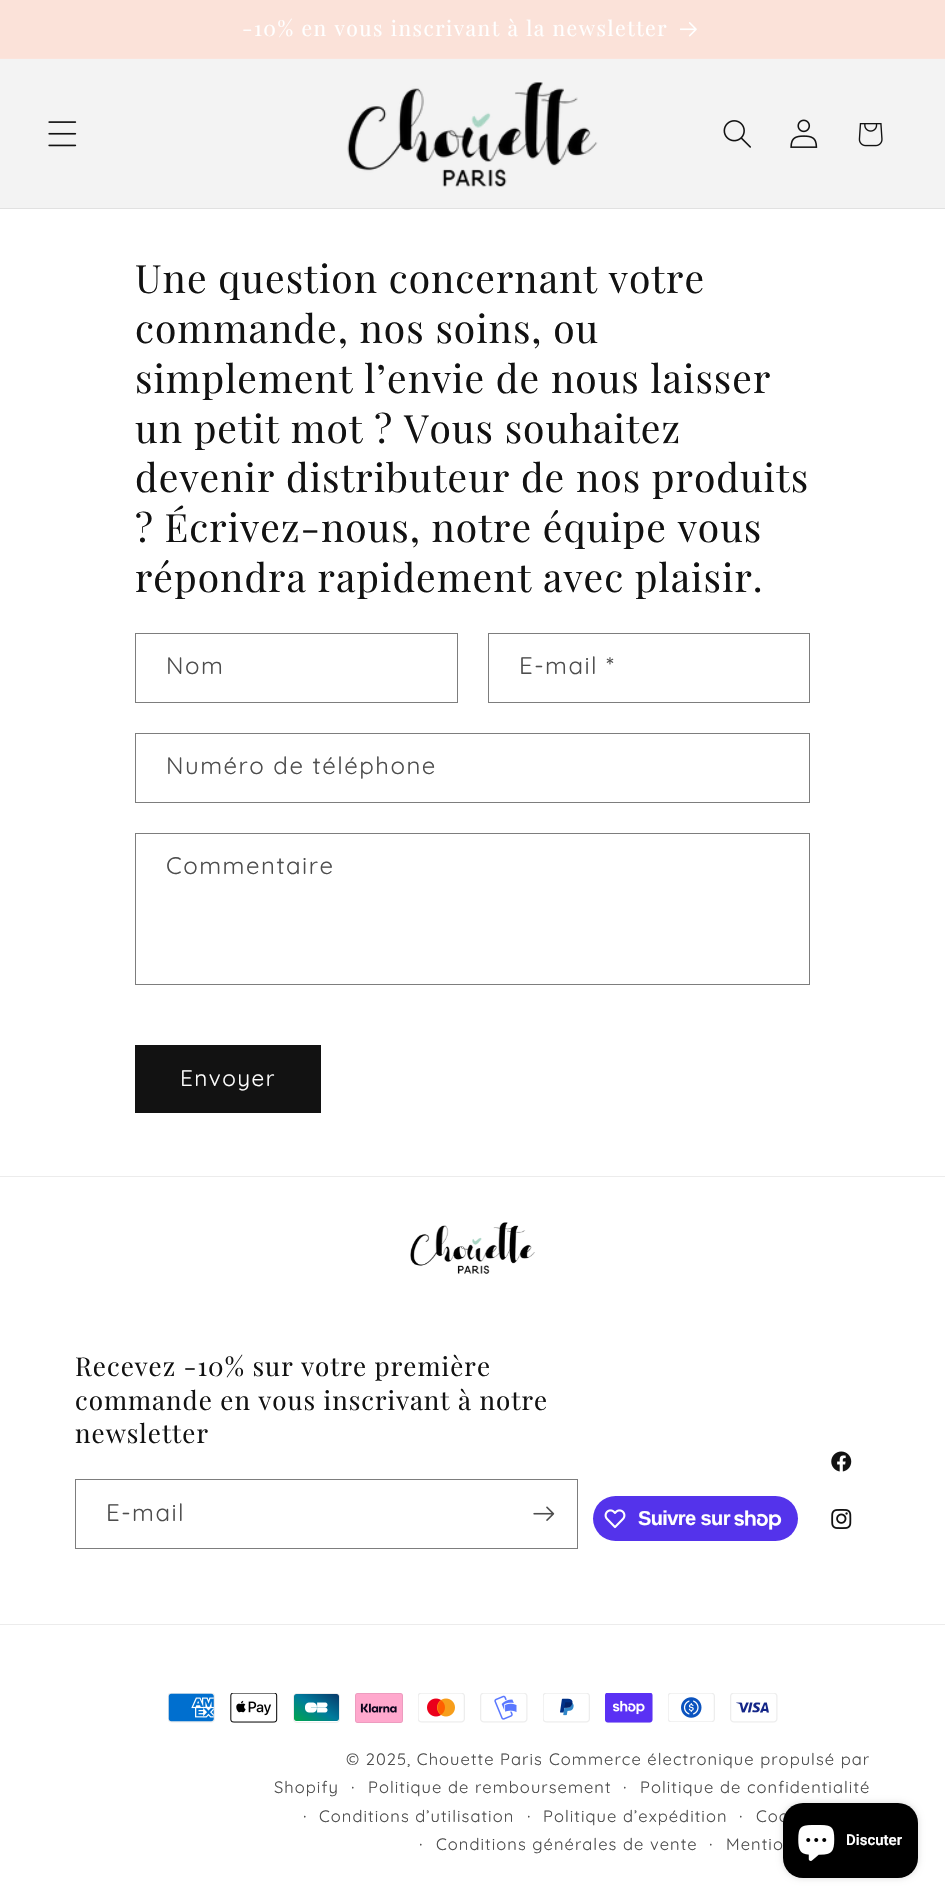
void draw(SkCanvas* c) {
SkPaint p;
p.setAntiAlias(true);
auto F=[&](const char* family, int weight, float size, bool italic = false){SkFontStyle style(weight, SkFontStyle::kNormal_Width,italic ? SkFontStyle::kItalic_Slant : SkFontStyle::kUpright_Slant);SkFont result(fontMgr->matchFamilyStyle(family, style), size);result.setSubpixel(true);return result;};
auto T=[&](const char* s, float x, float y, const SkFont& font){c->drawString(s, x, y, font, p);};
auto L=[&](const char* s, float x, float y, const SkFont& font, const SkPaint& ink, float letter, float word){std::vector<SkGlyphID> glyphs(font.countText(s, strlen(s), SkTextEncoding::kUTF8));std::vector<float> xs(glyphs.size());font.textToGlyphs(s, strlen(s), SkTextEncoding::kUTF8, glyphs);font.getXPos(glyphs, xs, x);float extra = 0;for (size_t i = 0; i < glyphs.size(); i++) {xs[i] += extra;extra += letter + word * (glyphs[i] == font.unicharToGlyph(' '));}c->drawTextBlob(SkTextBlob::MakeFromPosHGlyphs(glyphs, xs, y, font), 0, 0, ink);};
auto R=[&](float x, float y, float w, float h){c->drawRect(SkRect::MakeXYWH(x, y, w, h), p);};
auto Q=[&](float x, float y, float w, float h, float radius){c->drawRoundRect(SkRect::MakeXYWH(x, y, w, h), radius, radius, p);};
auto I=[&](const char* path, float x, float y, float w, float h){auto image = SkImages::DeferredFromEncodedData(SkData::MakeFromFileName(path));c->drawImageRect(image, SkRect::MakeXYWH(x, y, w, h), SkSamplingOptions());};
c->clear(0xffffffff);
p.setColor(0xfffbe2d9);
R(0,0,945,58);
p.setColor(0xfffbe4dc);
R(0,58,945,1);
auto f1 = F("Playfair Display",400,21.1);
p.setColor(0xffffffff);
L("-10% en vous inscrivant à la newsletter",242,36,f1,p,1.5,0);
I("1.png",680,22,17,15);
p.setColor(0xfff3f3f3);
R(0,59,945,149);
p.setColor(0xffe1e1e1);
R(0,208,945,1);
I("2.png",48,121,29,26);
I("3.png",347,82,251,105);
I("4.png",723,120,28,28);
I("5.png",790,119,28,29);
I("6.png",858,123,25,24);
auto f2 = F("Playfair Display",400,39);
p.setColor(0xff121212);
L("Une question concernant votre",135,293,f2,p,1,0);
L("commande, nos soins, ou",135,343,f2,p,1,0);
L("simplement l’envie de nous laisser",135,393,f2,p,1,0);
L("un petit mot ? Vous souhaitez",135,443,f2,p,1,0);
L("devenir distributeur de nos produits",135,492,f2,p,1,0);
L("? Écrivez-nous, notre équipe vous",135,542,f2,p,1,0);
L("répondra rapidement avec plaisir.",135,592,f2,p,1,0);
p.setStroke(true);
p.setStrokeWidth(1);
p.setColor(0xff7d7d7d);
c->drawRect(SkRect::MakeXYWH(135.5,633.5,322,69),p);
auto f3 = F("Quicksand",400,24);
p.setStroke(false);
p.setColor(0xff4d4d4d);
L("Nom",166,674,f3,p,1.5,0);
p.setStroke(true);
p.setColor(0xff7d7d7d);
c->drawRect(SkRect::MakeXYWH(488.5,633.5,321,69),p);
p.setStroke(false);
p.setColor(0xff4d4d4d);
L("E-mail *",519,674,f3,p,1.5,0);
p.setStroke(true);
p.setColor(0xff7d7d7d);
c->drawRect(SkRect::MakeXYWH(135.5,733.5,674,69),p);
p.setStroke(false);
p.setColor(0xff4d4d4d);
L("Numéro de téléphone",166,774,f3,p,1.5,0);
p.setStroke(true);
p.setColor(0xff7d7d7d);
c->drawRect(SkRect::MakeXYWH(135.5,833.5,674,151),p);
p.setStroke(false);
p.setColor(0xff4d4d4d);
L("Commentaire",166,874,f3,p,1.5,0);
p.setColor(0xff121212);
R(135,1045,186,68);
auto f4 = F("Quicksand",400,22.5);
p.setColor(0xffffffff);
L("Envoyer",180,1086,f4,p,1.5,0);
p.setColor(0xffececec);
R(0,1176,945,1);
I("7.png",410,1222,125,52);
auto f5 = F("Playfair Display",400,26);
p.setColor(0xff121212);
L("Recevez -10% sur votre première",75,1376,f5,p,1,0);
L("commande en vous inscrivant à notre",75,1410,f5,p,1,0);
L("newsletter",75,1443,f5,p,1,0);
p.setStroke(true);
p.setColor(0xff7d7d7d);
c->drawRect(SkRect::MakeXYWH(75.5,1479.5,502,69),p);
p.setStroke(false);
p.setColor(0xff4d4d4d);
L("E-mail",106,1521,f3,p,1.5,0);
I("8.png",533,1506,22,15);
p.setColor(0xff5433eb);
Q(593,1496,205,45,22.5);
I("9.png",604,1509,22,20);
auto f6 = F("Liberation Sans",700,20);
p.setColor(0xffffffff);
L("Suivre sur",638,1525,f6,p,-.6,0);
I("10.png",734,1510,48,20);
I("11.png",831,1451,21,21);
I("12.png",831,1509,21,20);
p.setColor(0xffececec);
R(0,1624,945,1);
I("13.png",168,1693,47,30);
I("14.png",230,1693,48,30);
I("15.png",293,1693,47,30);
I("16.png",355,1693,48,30);
I("17.png",418,1693,47,30);
I("18.png",480,1693,48,30);
I("19.png",543,1693,47,30);
I("20.png",605,1693,48,30);
I("21.png",668,1693,47,29);
I("22.png",730,1693,48,30);
auto f7 = F("Quicksand",400,16.5);
p.setColor(0xff4d4d4d);
L("© 2025, Chouette Paris",346,1765,f7,p,1.05,0);
L("Commerce électronique propulsé par",549,1765,f7,p,1.05,0);
L("Shopify",274,1793,f7,p,1.05,0);
auto f8 = F("Quicksand",400,18);
L("·",351,1793,f8,p,1.05,0);
L("Politique de remboursement",368,1793,f7,p,1.05,0);
L("·",623,1793,f8,p,1.05,0);
L("Politique de confidentialité",640,1793,f7,p,1.05,0);
L("·",303,1822,f8,p,1.05,0);
L("Conditions d’utilisation",319,1822,f7,p,1.05,0);
L("·",527,1822,f8,p,1.05,0);
L("Politique d’expédition",543,1822,f7,p,1.05,0);
L("·",739,1822,f8,p,1.05,0);
L("Coo",756,1822,f7,p,1.05,0);
L("·",419,1850,f8,p,1.05,0);
L("Conditions générales de vente",436,1850,f7,p,1.05,0);
L("·",709,1850,f8,p,1.05,0);
L("Mentio",726,1850,f7,p,1.05,0);
p.setColor(0x26000000);
p.setMaskFilter(SkMaskFilter::MakeBlur(kNormal_SkBlurStyle, 3));
c->drawRoundRect(SkRect::MakeXYWH(783,1803,135,75),20,20,p);
p.setMaskFilter(nullptr);
p.setColor(0xff000000);
Q(783,1803,135,75,20);
I("23.png",798,1825,37,36);
auto f9 = F("Roboto",600,15);
p.setColor(0xffffffff);
T("Discuter",846,1845,f9);
}
